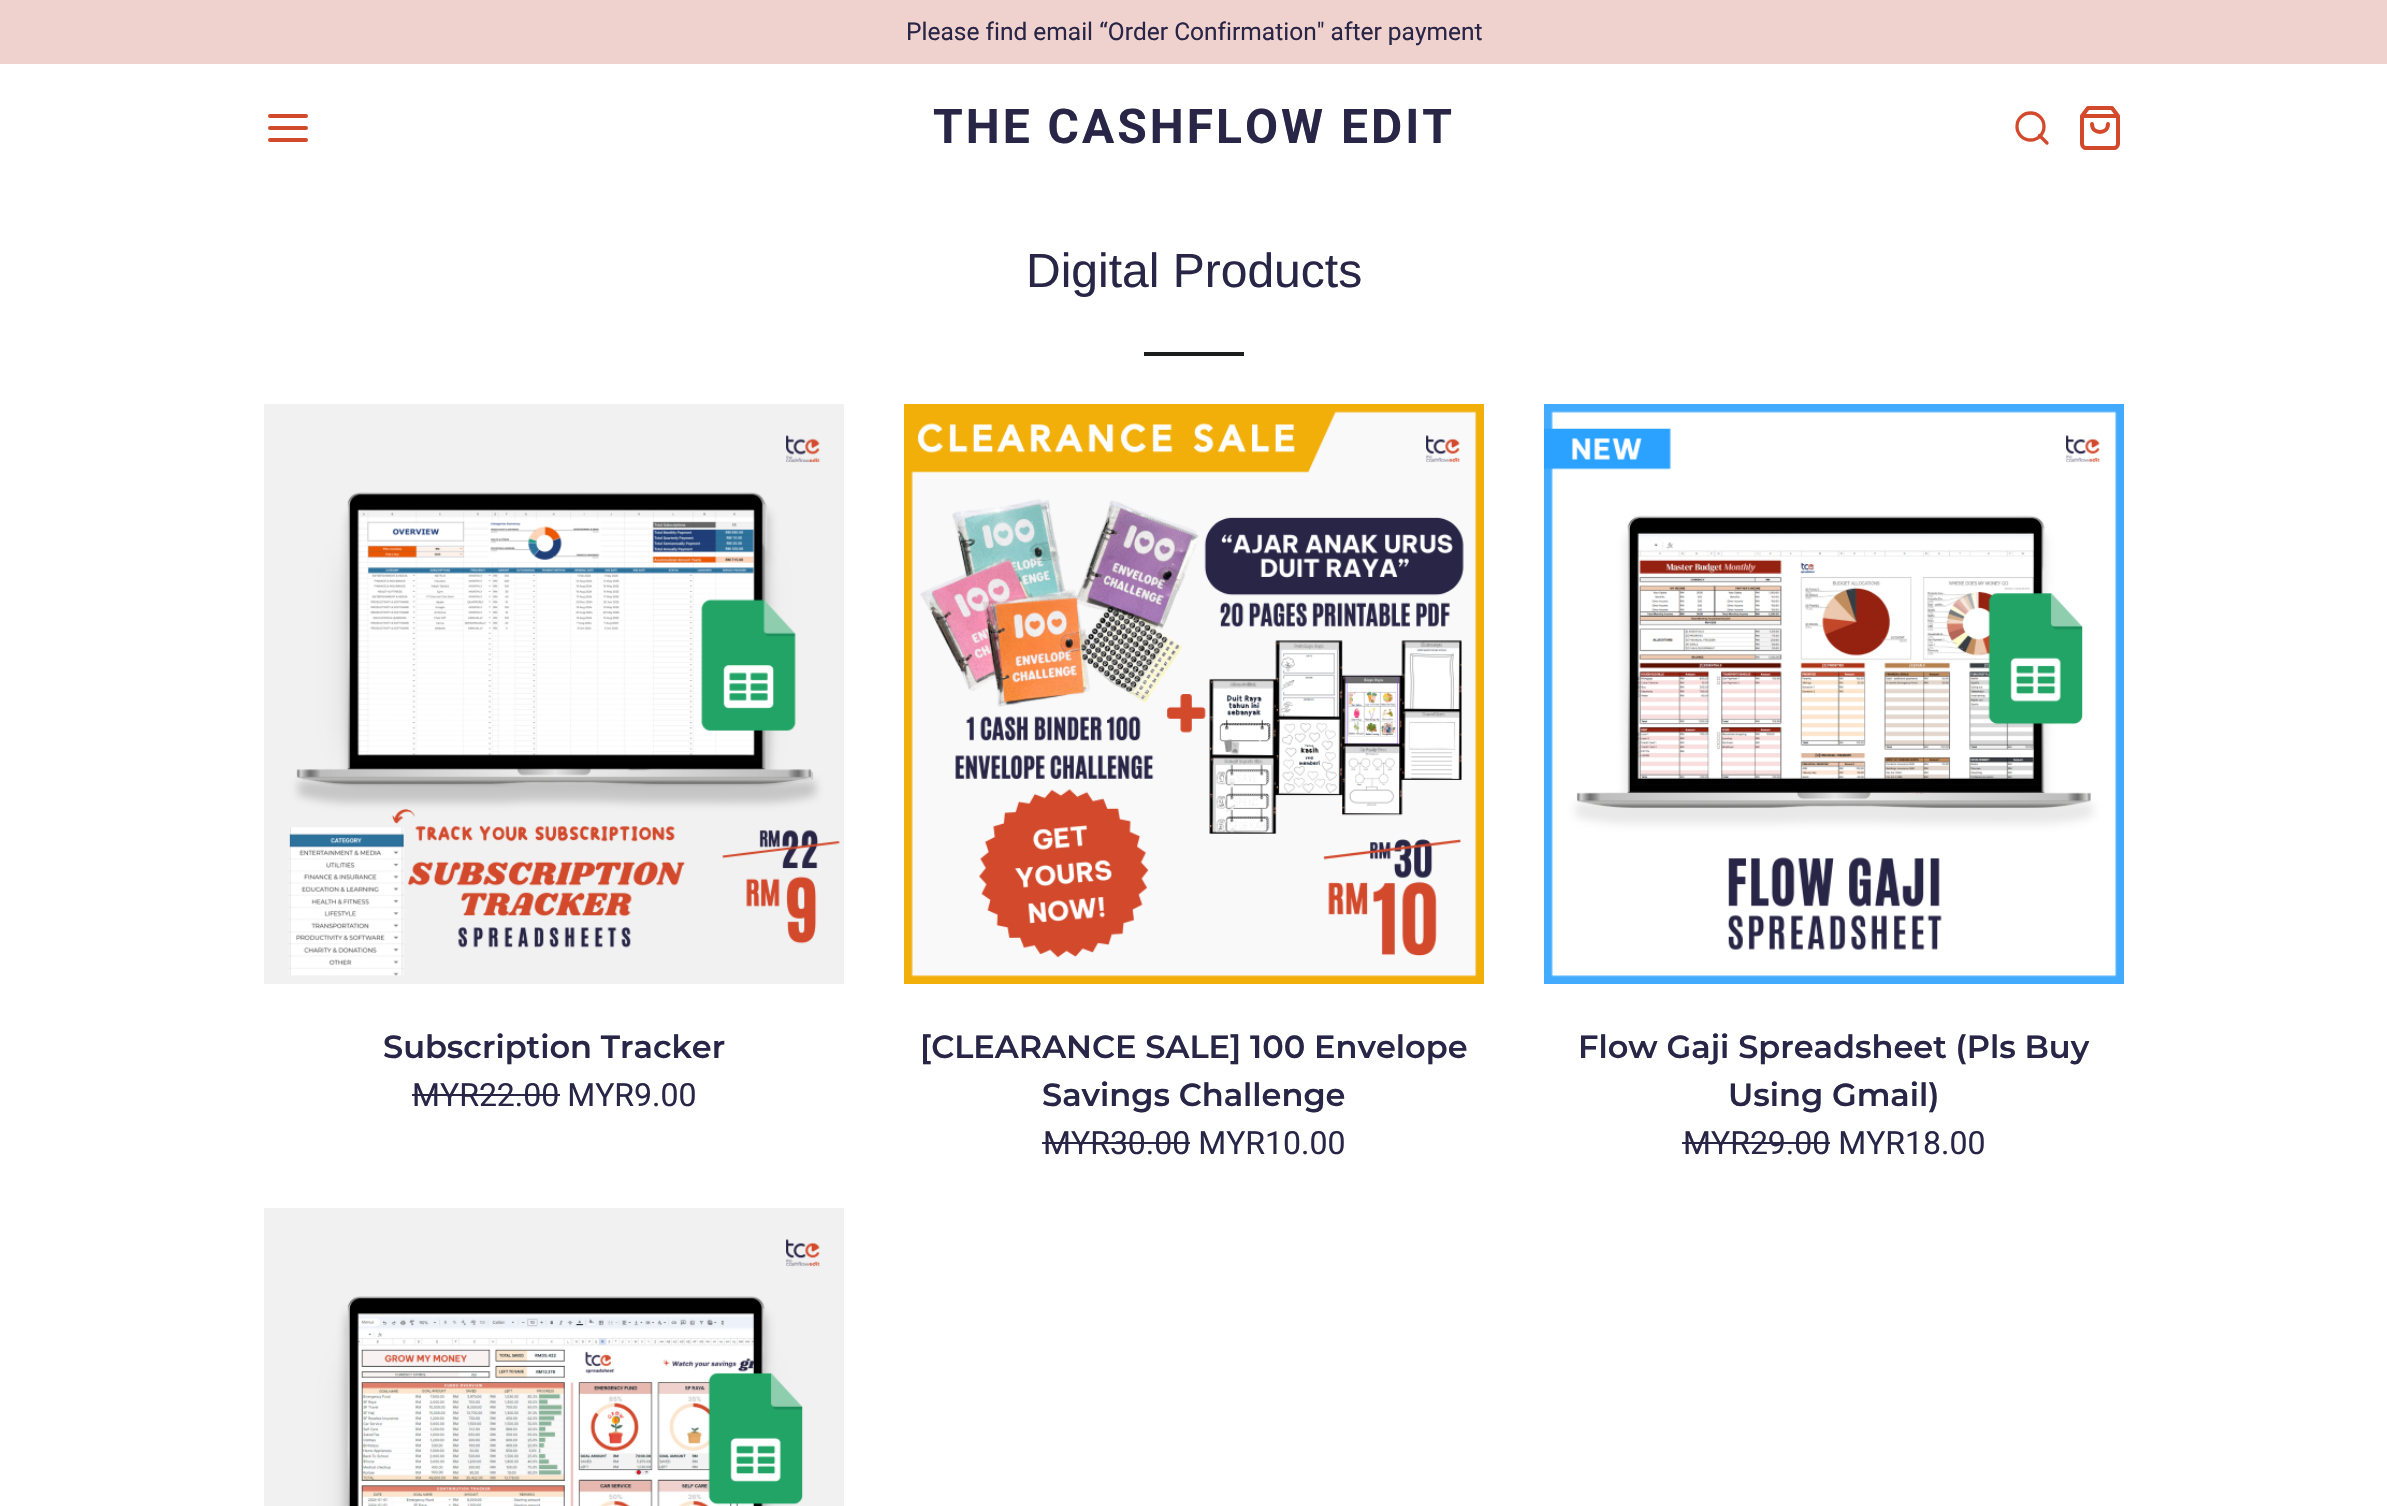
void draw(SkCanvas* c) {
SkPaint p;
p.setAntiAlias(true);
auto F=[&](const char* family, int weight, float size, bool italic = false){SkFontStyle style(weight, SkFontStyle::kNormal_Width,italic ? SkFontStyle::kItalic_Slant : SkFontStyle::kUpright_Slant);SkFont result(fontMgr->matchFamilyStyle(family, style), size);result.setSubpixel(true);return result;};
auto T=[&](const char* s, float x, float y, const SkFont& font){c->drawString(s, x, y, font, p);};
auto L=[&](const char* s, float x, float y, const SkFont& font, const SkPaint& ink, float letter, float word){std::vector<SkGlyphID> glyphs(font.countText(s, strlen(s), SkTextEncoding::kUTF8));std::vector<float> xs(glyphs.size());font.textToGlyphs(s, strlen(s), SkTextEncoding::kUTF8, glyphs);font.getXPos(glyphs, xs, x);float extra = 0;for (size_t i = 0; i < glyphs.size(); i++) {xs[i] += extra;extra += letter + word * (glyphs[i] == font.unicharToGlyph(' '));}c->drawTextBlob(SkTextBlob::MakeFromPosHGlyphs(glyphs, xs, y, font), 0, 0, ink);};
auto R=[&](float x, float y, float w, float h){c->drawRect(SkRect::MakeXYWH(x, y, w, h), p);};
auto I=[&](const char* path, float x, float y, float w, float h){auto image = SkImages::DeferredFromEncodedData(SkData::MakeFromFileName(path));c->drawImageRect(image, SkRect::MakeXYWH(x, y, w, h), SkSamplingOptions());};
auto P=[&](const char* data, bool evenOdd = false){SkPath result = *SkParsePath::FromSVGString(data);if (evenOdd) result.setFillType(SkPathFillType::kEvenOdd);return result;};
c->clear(0xffffffff);
p.setColor(0xffefd2ce);
R(0,0,2387,64);
auto f1 = F("Roboto",400,24.5);
p.setColor(0xff292546);
T("Please find email “Order Confirmation\" after payment",906,40,f1);
p.setStroke(true);
p.setStrokeWidth(4);
p.setStrokeCap(SkPaint::kRound_Cap);
p.setStrokeJoin(SkPaint::kRound_Join);
p.setColor(0xffd2492c);
c->drawPath(P("M270 128h36m-36-12h36m-36 24h36"),p);
auto f2 = F("Roboto",700,48);
p.setStroke(false);
p.setColor(0xff292546);
L("THE CASHFLOW EDIT",933,143,f2,p,3,0);
p.setStroke(true);
p.setStrokeWidth(3.3);
p.setStrokeCap(SkPaint::kButt_Cap);
p.setStrokeJoin(SkPaint::kMiter_Join);
p.setColor(0xffd2492c);
c->drawCircle(2030.5,126.5,13.5,p);
p.setStrokeWidth(4);
p.setStrokeCap(SkPaint::kRound_Cap);
p.setStrokeJoin(SkPaint::kRound_Join);
c->drawPath(P("M2088 108l-6 8v28c0 2 2 4 4 4h28c2 0 4-2 4-4v-28l-6-8zm-6 8h36m-10 8c0 10.5-16 10.5-16 0"),p);
p.setStrokeWidth(3.3);
c->drawPath(P("M2047 143l-7.5-7.5"),p);
auto f3 = F("Liberation Sans",400,48);
p.setStroke(false);
p.setColor(0xff292546);
T("Digital Products",1026,287,f3);
p.setColor(0xff1c1d1d);
R(1144,352,100,4);
I("1.png",264,404,580,580);
auto f4 = F("Montserrat",600,32);
p.setColor(0xff292546);
T("Subscription Tracker",383,1058,f4);
auto f5 = F("Roboto",400,32);
T("MYR22.00 MYR9.00",412,1106,f5);
R(412,1094,148,2);
I("2.png",904,404,580,580);
T("[CLEARANCE SALE] 100 Envelope",920,1058,f4);
T("Savings Challenge",1042,1106,f4);
T("MYR30.00 MYR10.00",1043,1154,f5);
R(1042,1142,148,2);
I("3.png",1544,404,580,580);
T("Flow Gaji Spreadsheet (Pls Buy",1578,1058,f4);
T("Using Gmail)",1728,1106,f4);
T("MYR29.00 MYR18.00",1683,1154,f5);
R(1682,1142,148,2);
I("4.png",264,1208,580,298);
}
